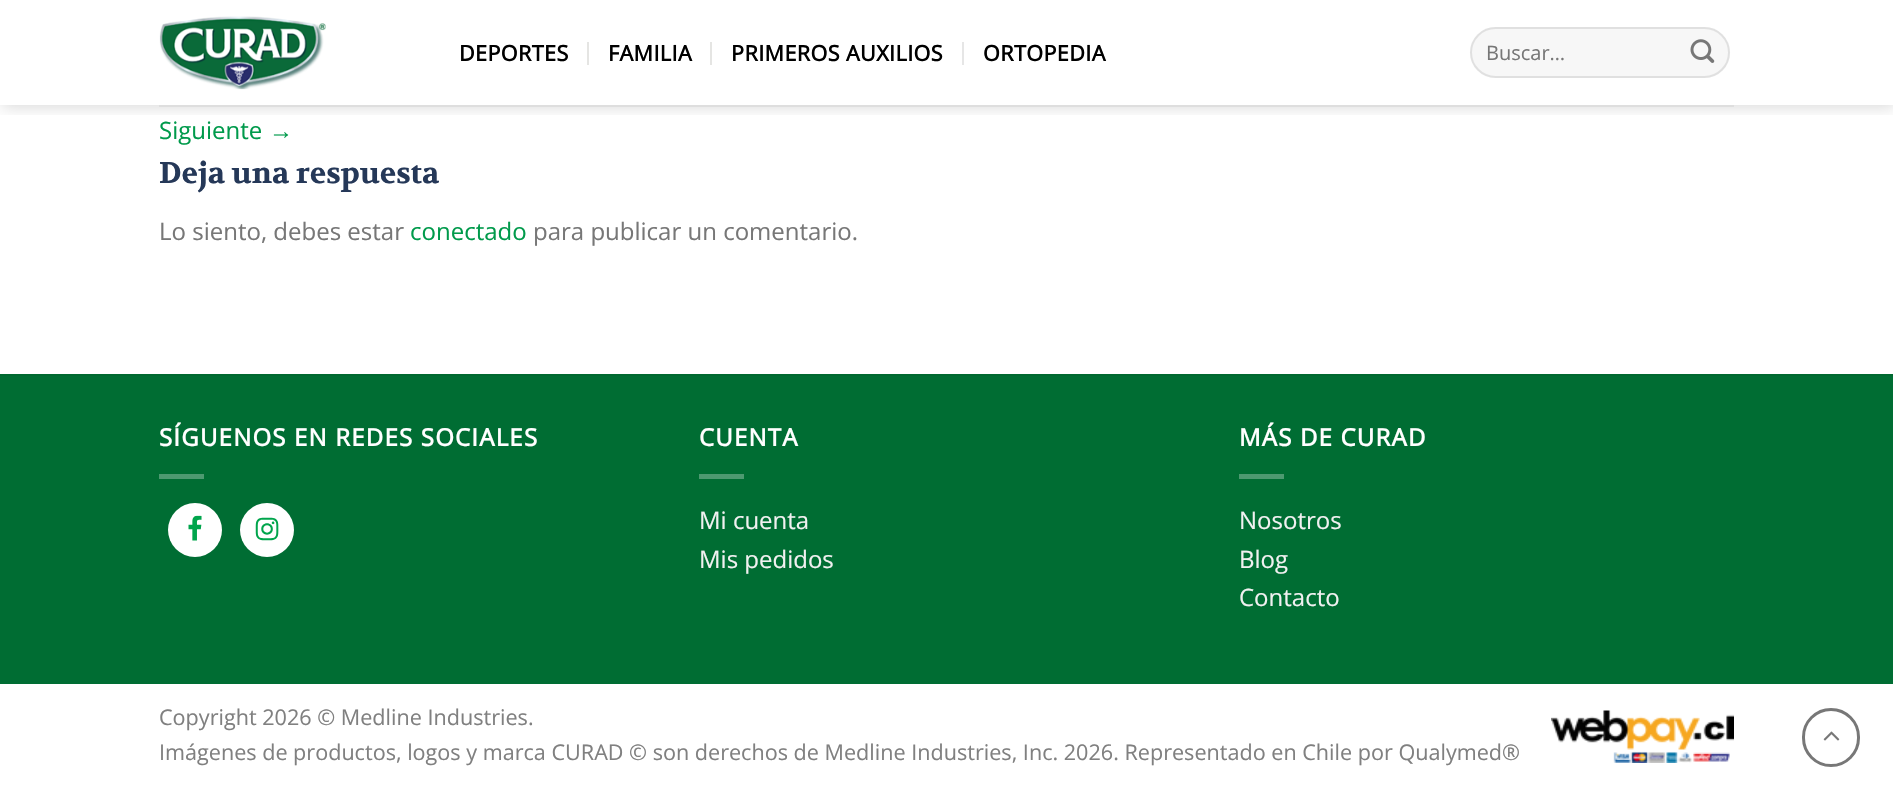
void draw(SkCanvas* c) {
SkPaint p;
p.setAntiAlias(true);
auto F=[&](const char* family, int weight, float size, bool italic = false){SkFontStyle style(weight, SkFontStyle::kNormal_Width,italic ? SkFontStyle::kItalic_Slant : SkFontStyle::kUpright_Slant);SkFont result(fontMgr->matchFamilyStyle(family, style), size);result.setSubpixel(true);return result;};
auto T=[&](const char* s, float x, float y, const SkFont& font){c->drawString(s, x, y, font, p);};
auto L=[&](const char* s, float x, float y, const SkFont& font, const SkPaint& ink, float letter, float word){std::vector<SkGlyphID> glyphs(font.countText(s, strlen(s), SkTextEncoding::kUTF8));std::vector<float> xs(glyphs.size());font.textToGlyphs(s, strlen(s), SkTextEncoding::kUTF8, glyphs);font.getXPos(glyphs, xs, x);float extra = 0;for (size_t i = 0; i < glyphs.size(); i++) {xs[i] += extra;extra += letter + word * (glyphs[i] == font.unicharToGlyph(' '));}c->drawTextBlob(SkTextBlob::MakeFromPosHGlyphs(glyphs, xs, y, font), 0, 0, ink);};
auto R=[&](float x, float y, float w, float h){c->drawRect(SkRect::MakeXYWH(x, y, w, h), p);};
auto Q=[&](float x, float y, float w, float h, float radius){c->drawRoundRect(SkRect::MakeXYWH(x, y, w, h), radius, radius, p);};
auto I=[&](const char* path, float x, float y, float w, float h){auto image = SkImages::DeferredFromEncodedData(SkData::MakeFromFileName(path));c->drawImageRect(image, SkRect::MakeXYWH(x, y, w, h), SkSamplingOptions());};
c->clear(0xffffffff);
c->save();
c->clipRect(SkRect::MakeXYWH(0,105,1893,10));
p.setColor(0x26000000);
p.setMaskFilter(SkMaskFilter::MakeBlur(kNormal_SkBlurStyle, 7.5));
c->drawRect(SkRect::MakeXYWH(2,2,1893,105),p);
p.setMaskFilter(nullptr);
c->restore();
I("1.png",159,16,167,74);
auto f1 = F("Open Sans",700,21.6);
p.setColor(0xff000000);
L("DEPORTES",459,61,f1,p,.4,0);
p.setColor(0xffe5e5e3);
R(587,42,2,23);
p.setColor(0xff000000);
L("FAMILIA",608,61,f1,p,.4,0);
p.setColor(0xffe5e5e3);
R(710,42,2,23);
p.setColor(0xff000000);
L("PRIMEROS AUXILIOS",731,61,f1,p,.4,0);
p.setColor(0xffe6e6e6);
R(962,42,2,23);
p.setColor(0xff000000);
L("ORTOPEDIA",983,61,f1,p,.4,0);
p.setColor(0xfff7f7f7);
Q(1470,27,260,51,25.5);
p.setStroke(true);
p.setStrokeWidth(2);
p.setColor(0x17000000);
c->drawRoundRect(SkRect::MakeXYWH(1471,28,258,49),24.5,24.5,p);
auto f2 = F("Open Sans",400,20);
p.setStroke(false);
p.setColor(0xff777777);
T("Buscar…",1486,60,f2);
I("2.png",1690,39,25,24);
p.setColor(0xffdedede);
R(159,105,1575,2);
auto f3 = F("Open Sans",400,24);
p.setColor(0xff009a4b);
T("Siguiente",159,139,f3);
auto f4 = F("Liberation Sans",400,24);
T("→",269,139,f4);
auto f5 = F("Volkhov",700,30);
p.setColor(0xff253858);
T("Deja una respuesta",159,183,f5);
p.setColor(0xff777777);
T("Lo siento, debes estar",159,240,f3);
p.setColor(0xff009a4b);
T("conectado",410,240,f3);
p.setColor(0xff777777);
T("para publicar un comentario.",533,240,f3);
p.setColor(0xff006d33);
R(0,376,1893,308);
p.setColor(0xff006830);
R(0,374,1893,2);
auto f6 = F("Open Sans",700,24);
p.setColor(0xffffffff);
L("SÍGUENOS EN REDES SOCIALES",159,446,f6,p,1.2,0);
p.setColor(0xff4d9970);
R(159,474,45,5);
p.setColor(0xffffffff);
c->drawCircle(195,530,27,p);
I("3.png",188,515,14,26);
c->drawCircle(267,530,27,p);
I("4.png",255,517,24,24);
L("CUENTA",699,446,f6,p,1.2,0);
p.setColor(0xff4d9970);
R(699,474,45,5);
p.setColor(0xfff1f1f1);
T("Mi cuenta",699,529,f3);
T("Mis pedidos",699,568,f3);
p.setColor(0xffffffff);
L("MÁS DE CURAD",1239,446,f6,p,1.2,0);
p.setColor(0xff4d9970);
R(1239,474,45,5);
p.setColor(0xfff1f1f1);
T("Nosotros",1239,529,f3);
T("Blog",1239,568,f3);
T("Contacto",1239,606,f3);
auto f7 = F("Open Sans",400,21.6);
p.setColor(0xff808080);
T("Copyright 2026 © Medline Industries.",159,725,f7);
T("Imágenes de productos, logos y marca CURAD © son derechos de Medline Industries, Inc. 2026. Representado en Chile por Qualymed®",159,760,f7);
I("5.png",1551,710,183,53);
p.setStroke(true);
p.setStrokeWidth(3);
p.setColor(0xff777777);
c->drawRoundRect(SkRect::MakeXYWH(1803.5,709.5,55,56),27.5,27.5,p);
I("6.png",1823,731,17,10);
}
